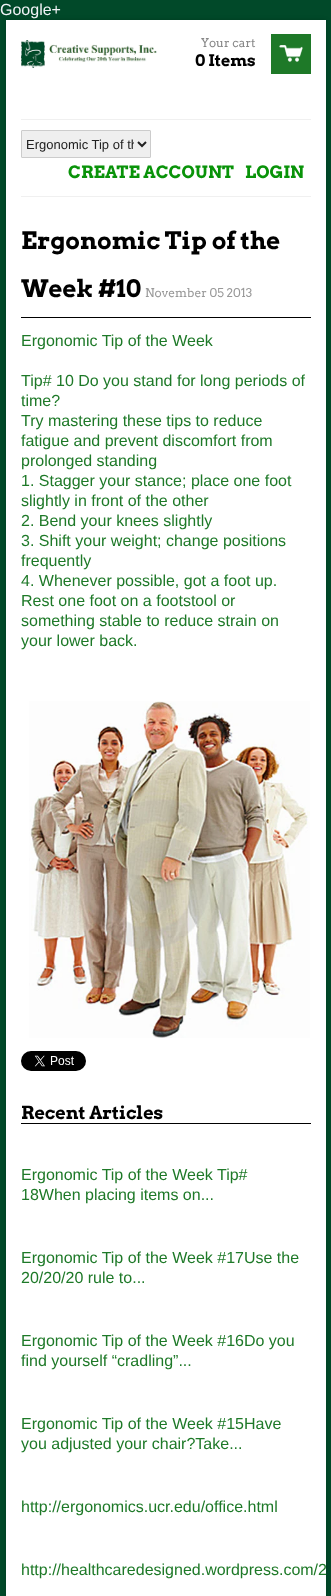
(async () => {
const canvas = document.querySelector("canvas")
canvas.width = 331
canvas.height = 1596
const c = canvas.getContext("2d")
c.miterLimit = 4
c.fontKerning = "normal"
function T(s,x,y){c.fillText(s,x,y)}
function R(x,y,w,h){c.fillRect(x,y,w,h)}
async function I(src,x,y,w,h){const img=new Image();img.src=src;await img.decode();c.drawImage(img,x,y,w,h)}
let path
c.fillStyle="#014929"
R(0,0,331,1596)
c.fillStyle="#00000033"
c.filter="blur(2px)"
c.beginPath()
c.rect(6,20,320,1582)
c.fill()
c.filter="none"
c.font="16px Liberation Sans"
c.fillStyle="#f1f3f7"
T("Google+",0,15)
c.fillStyle="#fff"
R(6,20,320,1576)
await I("1.png",21,40,136,28)
c.font="12px Arvo"
c.fillStyle="#888"
T("Your cart",201,47)
c.font="bold 16px Arvo"
c.fillStyle="#000"
T("0 Items",195,66)
c.fillStyle="#1e7928"
R(271,34,40,40)
await I("2.png",279,45,24,17)
c.fillStyle="#f0f0f0"
R(21,119,290,1)
R(21,196,290,1)
c.fillStyle="#efefef"
c.beginPath()
c.roundRect(21.5,130.5,129,27,.5)
c.fill()
c.strokeStyle="#ccc"
c.stroke()
path = new Path2D("M138 142l4 4l4-4")
c.strokeStyle="#222"
c.lineWidth=2
c.stroke(path)
c.save()
c.beginPath()
c.rect(26,136,108,17)
c.clip()
c.font="13px Liberation Sans"
c.fillStyle="#222"
T("Ergonomic Tip of th",26,149)
c.restore()
c.font="bold 17px Arvo"
c.fillStyle="#099309"
T("CREATE ACCOUNT",68,178)
T("LOGIN",245,178)
c.fillStyle="#000"
R(21,317,290,1)
c.font="bold 24px Arvo"
T("Ergonomic Tip of the",21,249)
T("Week #10",21,297)
c.font="12px Arvo"
c.fillStyle="#999"
T("November 05 2013",145,297)
c.font="16px Liberation Sans"
c.fillStyle="#1e7928"
T("Ergonomic Tip of the Week",21,346)
T("Tip# 10 Do you stand for long periods of",21,386)
T("time?",21,406)
T("Try mastering these tips to reduce",21,426)
T("fatigue and prevent discomfort from",21,446)
T("prolonged standing",21,466)
T("1. Stagger your stance; place one foot",21,486)
T("slightly in front of the other",21,506)
T("2. Bend your knees slightly",21,526)
T("3. Shift your weight; change positions",21,546)
T("frequently",21,566)
T("4. Whenever possible, got a foot up.",21,586)
T("Rest one foot on a footstool or",21,606)
T("something stable to reduce strain on",21,626)
T("your lower back.",21,646)
await I("3.png",29,701,281,337)
await I("4.png",21,1051,65,20)
c.fillStyle="#000"
R(21,1123,290,1)
c.font="bold 18px Arvo"
T("Recent Articles",21,1119)
c.font="16px Liberation Sans"
c.fillStyle="#1e7928"
T("Ergonomic Tip of the Week Tip#",21,1180)
T("18When placing items on...",21,1200)
T("Ergonomic Tip of the Week #17Use the",21,1263)
T("20/20/20 rule to...",21,1283)
T("Ergonomic Tip of the Week #16Do you",21,1346)
T("find yourself “cradling”...",21,1366)
T("Ergonomic Tip of the Week #15Have",21,1429)
T("you adjusted your chair?Take...",21,1449)
T("http://ergonomics.ucr.edu/office.html",21,1512)
T("http://healthcaredesigned.wordpress.com/2",21,1575)
})()
